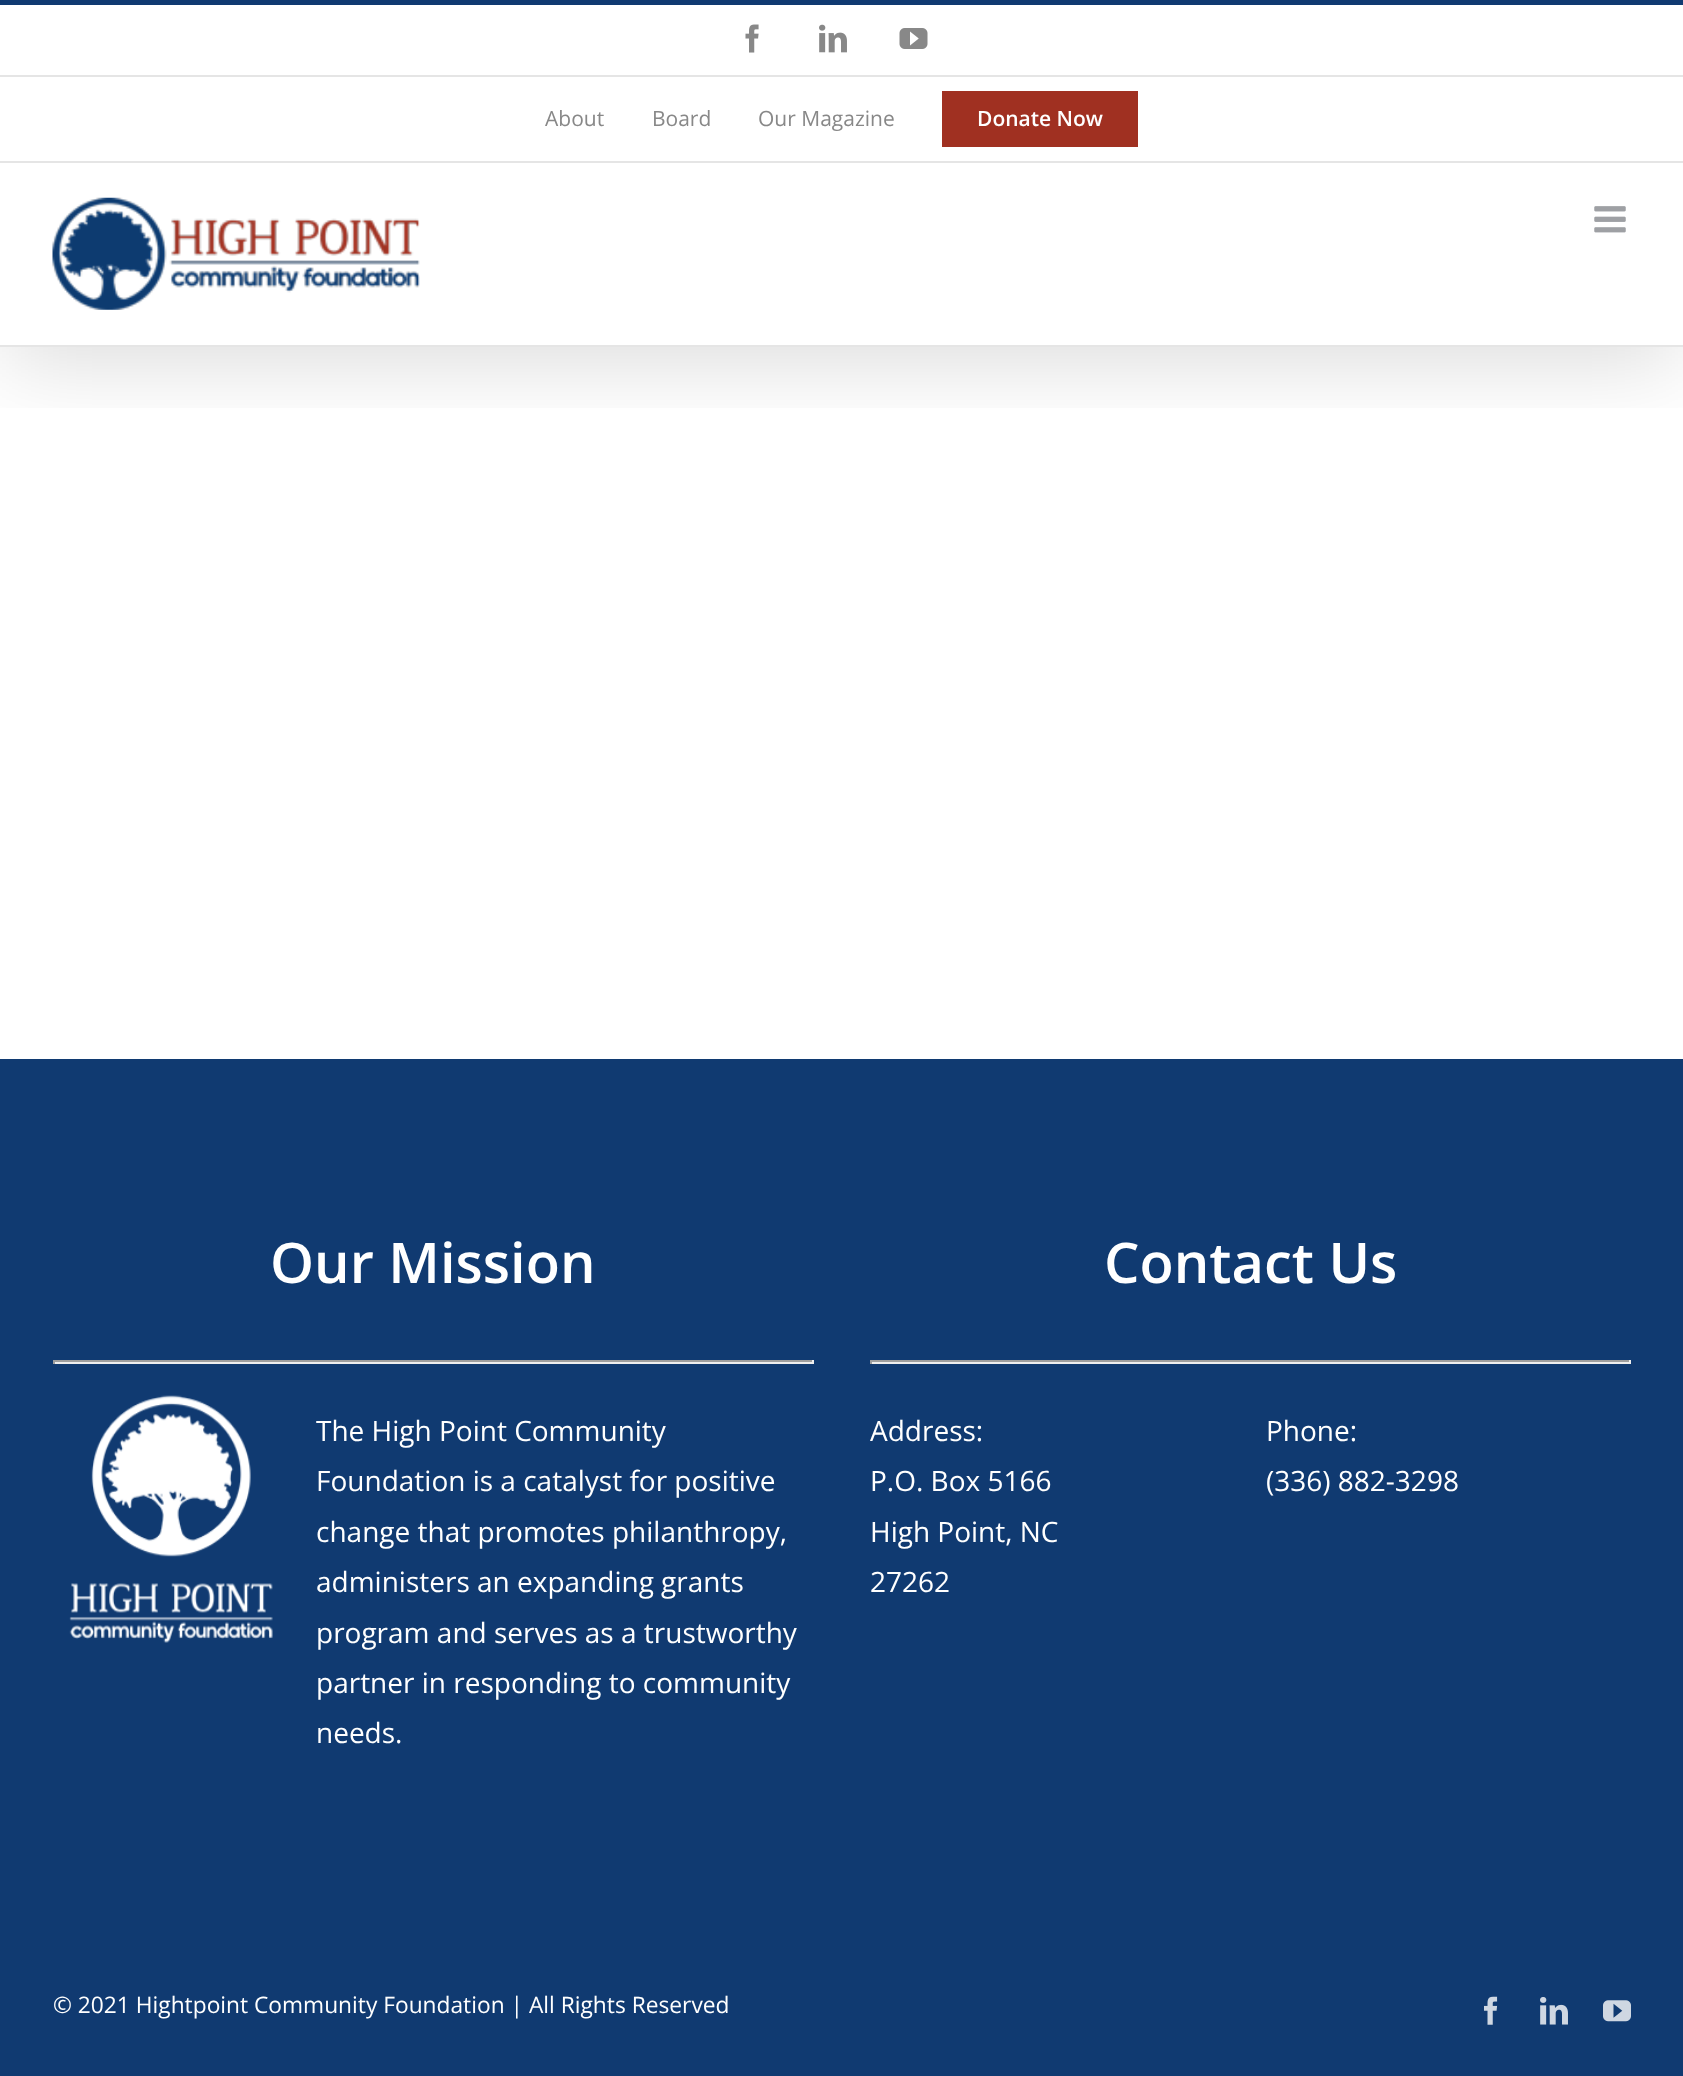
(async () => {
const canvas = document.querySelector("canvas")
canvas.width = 1683
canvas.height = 2076
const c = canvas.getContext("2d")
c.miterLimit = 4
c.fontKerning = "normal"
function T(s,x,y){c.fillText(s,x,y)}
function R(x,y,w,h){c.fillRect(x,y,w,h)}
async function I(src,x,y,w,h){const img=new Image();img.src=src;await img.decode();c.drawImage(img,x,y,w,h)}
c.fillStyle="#fff"
R(0,0,1683,2076)
c.save()
c.beginPath()
c.rect(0,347,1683,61)
c.clip()
c.fillStyle="#00000024"
c.filter="blur(44px)"
c.beginPath()
c.rect(4,21,1676,340)
c.fill()
c.filter="none"
c.restore()
c.fillStyle="#103a71"
R(0,0,1683,5)
c.fillStyle="#e5e5e5"
R(0,161,1683,2)
R(0,75,1683,2)
await I("1.png",745,24,14,29)
await I("2.png",819,24,28,29)
await I("3.png",899,28,29,21)
c.font="21px Open Sans"
c.fillStyle="#888"
T("About",545,126)
T("Board",652,126)
T("Our Magazine",758,126)
c.fillStyle="#a03021"
R(942,91,196,56)
c.font="600 21px Open Sans"
c.fillStyle="#fff"
T("Donate Now",977,126)
c.fillStyle="#e5e5e5"
R(0,345,1683,2)
await I("4.png",52,197,368,113)
await I("5.png",1594,206,32,27)
c.fillStyle="#103a71"
R(0,1059,1683,1017)
c.font="600 56px Open Sans"
c.fillStyle="#fff"
T("Our Mission",270,1283)
c.fillStyle="#9f9f9f"
R(53,1360,761,2)
c.fillStyle="#eee"
R(812,1360,2,4)
R(53,1362,761,2)
c.fillStyle="#9f9f9f"
R(53,1360,2,4)
await I("6.png",69,1395,204,248)
c.font="28px Open Sans"
c.fillStyle="#fff"
T("The High Point Community",316,1441)
T("Foundation is a catalyst for positive",316,1491)
T("change that promotes philanthropy,",316,1542)
T("administers an expanding grants",316,1592)
T("program and serves as a trustworthy",316,1643)
T("partner in responding to community",316,1693)
T("needs.",316,1743)
c.font="600 56px Open Sans"
T("Contact Us",1104,1283)
c.fillStyle="#9f9f9f"
R(870,1360,761,2)
c.fillStyle="#eee"
R(1629,1360,2,4)
R(870,1362,761,2)
c.fillStyle="#9f9f9f"
R(870,1360,2,4)
c.font="28px Open Sans"
c.fillStyle="#fff"
T("Address:",870,1441)
T("P.O. Box 5166",870,1491)
T("High Point, NC",870,1542)
T("27262",870,1592)
T("Phone:",1266,1441)
T("(336) 882-3298",1266,1491)
c.font="22.75px Open Sans"
T("© 2021 Hightpoint Community Foundation | All Rights Reserved",53,2013)
await I("7.png",1484,1996,14,29)
await I("8.png",1540,1997,28,28)
await I("9.png",1603,2000,28,22)
})()
